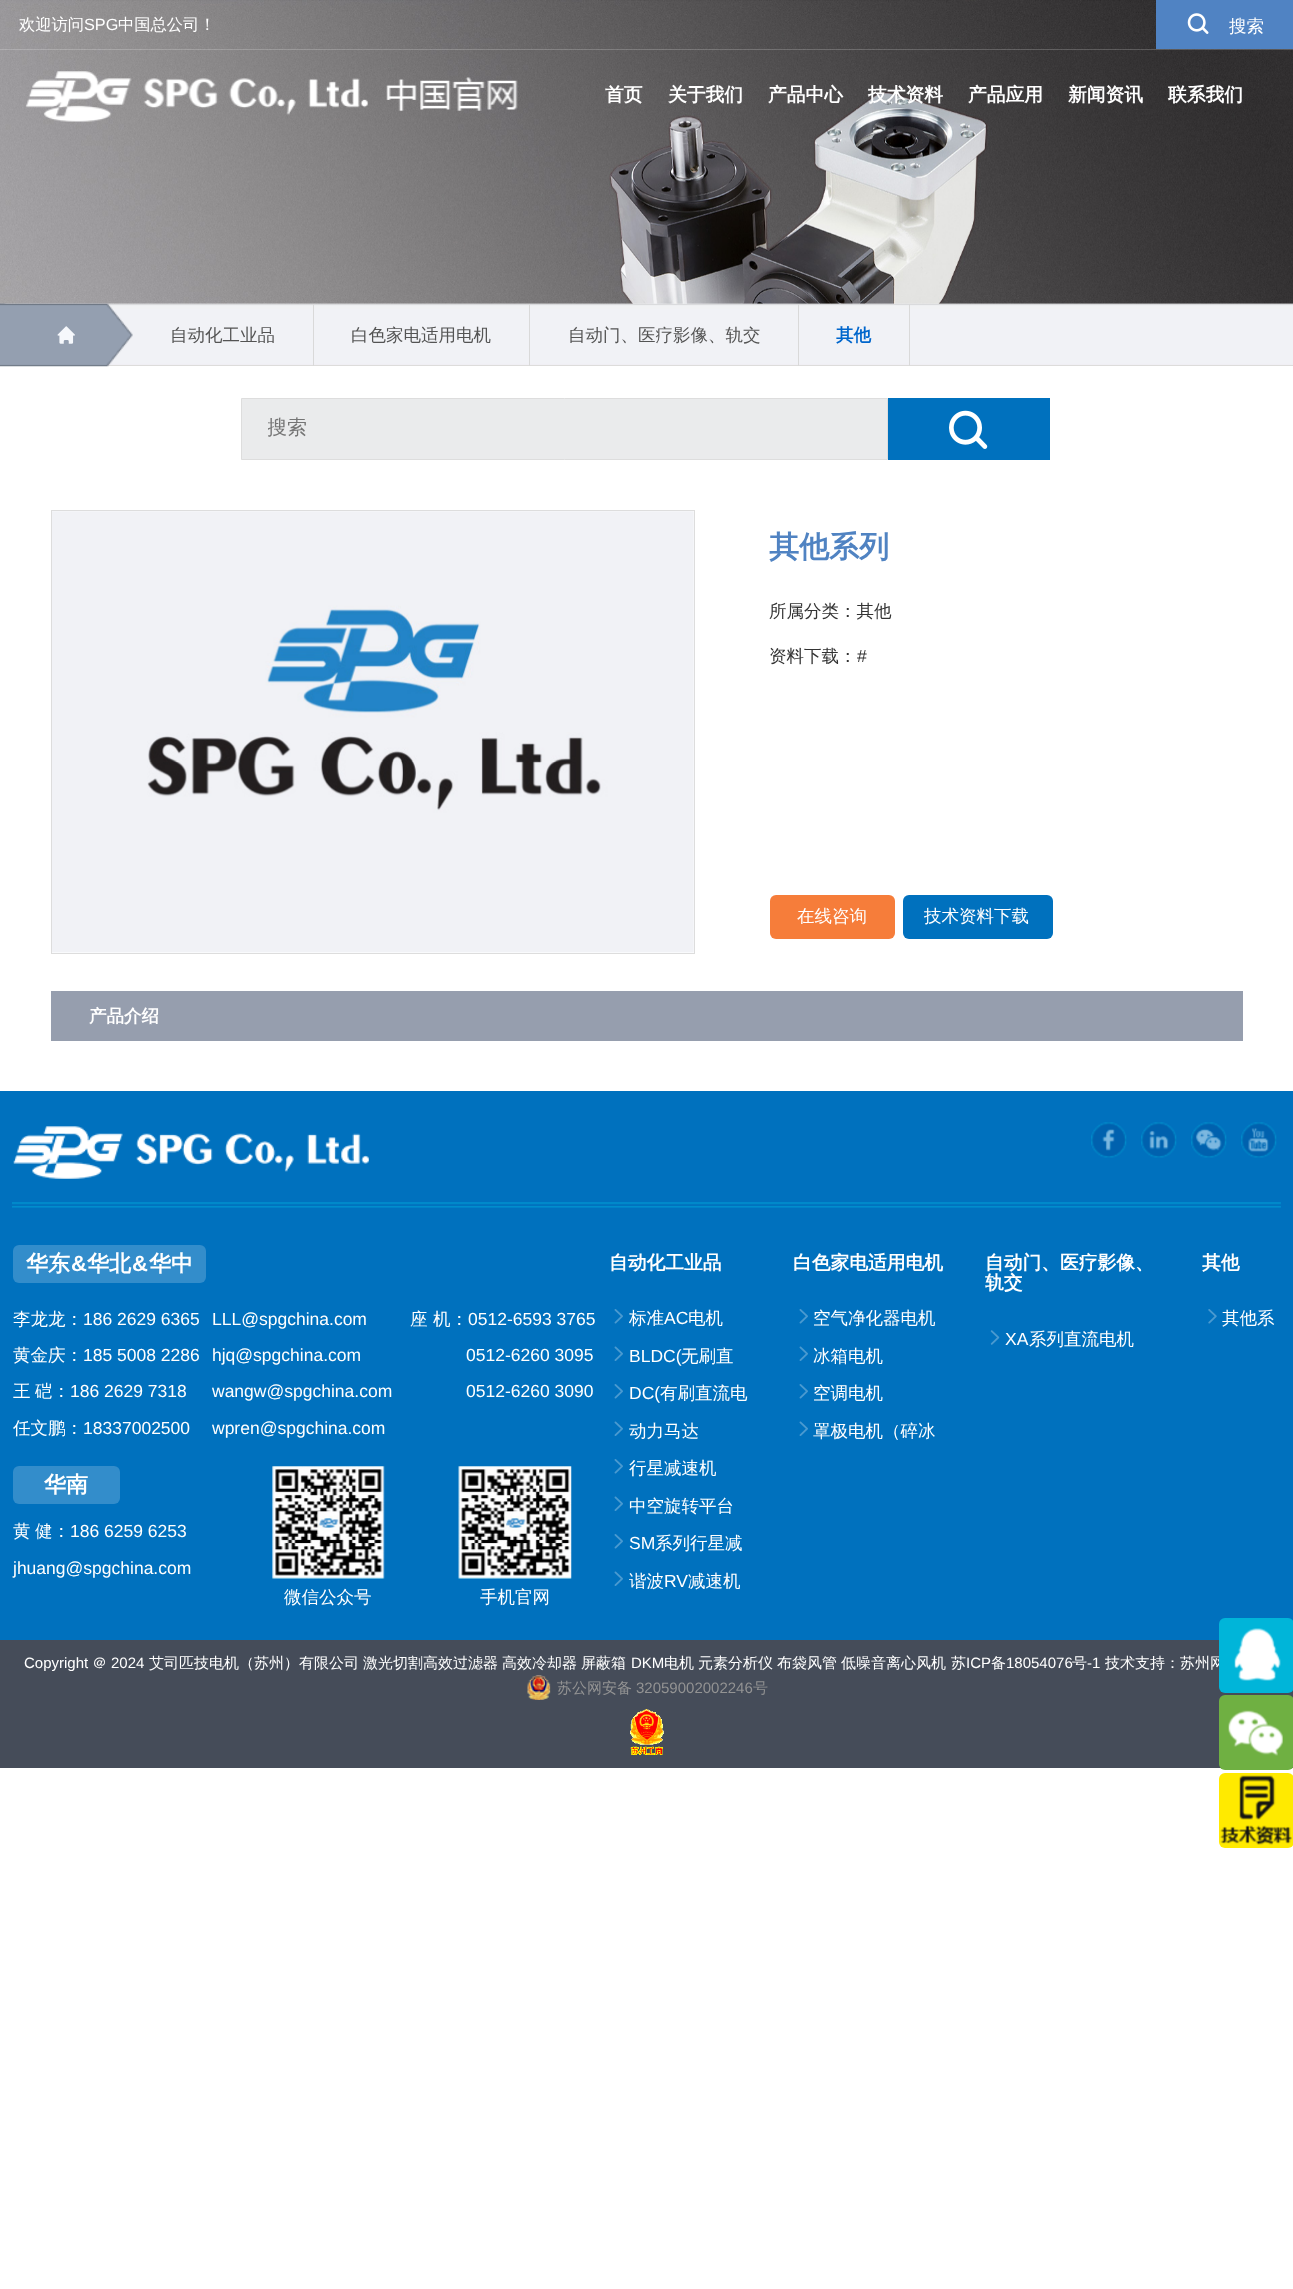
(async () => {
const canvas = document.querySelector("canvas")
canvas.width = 1293
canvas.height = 2289
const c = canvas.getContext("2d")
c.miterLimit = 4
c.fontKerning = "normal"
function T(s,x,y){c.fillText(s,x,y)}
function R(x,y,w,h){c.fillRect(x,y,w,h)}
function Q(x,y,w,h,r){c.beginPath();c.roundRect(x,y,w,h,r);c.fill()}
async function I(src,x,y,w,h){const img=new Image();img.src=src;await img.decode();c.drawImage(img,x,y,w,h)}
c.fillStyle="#fff"
R(0,0,1293,2289)
await I("3.png",0,0,1293,304)
c.fillStyle="#ffffff33"
R(0,49,1293,1)
c.font="500 16.25px WenQuanYi Zen Hei"
c.fillStyle="#fff"
T("欢迎访问",19,30)
c.font="16.25px Liberation Sans"
T("SPG",84,30)
c.font="500 16.25px WenQuanYi Zen Hei"
T("中国总公司！",118,30)
c.fillStyle="#5083c3"
R(1156,0,137,49)
await I("1.png",1187,13,22,21)
c.font="500 17.5px WenQuanYi Zen Hei"
c.fillStyle="#fff"
T("搜索",1229,32)
await I("2.png",26,71,492,51)
c.font="bold 18.75px WenQuanYi Zen Hei"
T("首页",605,101)
T("关于我们",668,101)
T("产品中心",768,101)
T("技术资料",868,101)
T("产品应用",968,101)
T("新闻资讯",1068,101)
T("联系我们",1168,101)
await I("4.png",0,303,1293,63)
await I("5.png",0,303,133,64)
await I("6.png",57,326,18,18)
c.fillStyle="#d9d9d9"
R(313,304,1,62)
c.font="500 17.5px WenQuanYi Zen Hei"
c.fillStyle="#545454"
T("自动化工业品",170,341)
c.fillStyle="#d9d9d9"
R(529,304,1,62)
c.fillStyle="#545454"
T("白色家电适用电机",351,341)
c.fillStyle="#d9d9d9"
R(798,304,1,62)
c.fillStyle="#545454"
T("自动门、医疗影像、轨交",568,341)
c.fillStyle="#d9d9d9"
R(909,304,1,62)
c.font="bold 17.5px WenQuanYi Zen Hei"
c.fillStyle="#06c"
T("其他",836,341)
c.fillStyle="#eaebec"
c.beginPath()
c.rect(241.5,398.5,646,61)
c.fill()
c.strokeStyle="#ddd"
c.stroke()
c.save()
c.beginPath()
c.rect(268,416,618,27)
c.clip()
c.font="500 20px WenQuanYi Zen Hei"
c.fillStyle="#757575"
T("搜索",267,434)
c.restore()
c.fillStyle="#0071be"
R(888,398,162,62)
await I("7.png",949,410,39,39)
c.strokeRect(51.5,510.5,643,443)
await I("8.png",52,511,642,442)
c.font="bold 30px WenQuanYi Zen Hei"
c.fillStyle="#5083c2"
T("其他系列",769,557)
c.font="500 17.5px WenQuanYi Zen Hei"
c.fillStyle="#333"
T("所属分类：其他",769,617)
T("资料下载：",769,662)
c.font="17.5px Liberation Sans"
T("#",857,662)
c.fillStyle="#f67d3a"
Q(770,895,125,44,6)
c.font="500 17.5px WenQuanYi Zen Hei"
c.fillStyle="#fff"
T("在线咨询",797,922)
c.fillStyle="#0071be"
Q(903,895,150,44,6)
c.fillStyle="#fff"
T("技术资料下载",924,922)
c.fillStyle="#969eae"
R(51,991,1192,50)
c.font="bold 17.5px WenQuanYi Zen Hei"
c.fillStyle="#fff"
T("产品介绍",89,1022)
c.fillStyle="#0071be"
R(0,1091,1293,549)
await I("9.png",12,1202,1269,6)
await I("10.png",13,1126,356,53)
await I("11.png",1091,1122,36,36)
await I("12.png",1141,1122,36,36)
await I("13.png",1191,1122,36,36)
await I("14.png",1241,1122,36,36)
c.fillStyle="#338dcb"
Q(13,1245,193,38,6)
c.font="bold 22px WenQuanYi Zen Hei"
c.fillStyle="#fff"
T("华东",26,1271)
c.font="bold 22px Liberation Sans"
T("&",71,1271)
c.font="bold 22px WenQuanYi Zen Hei"
T("华北",87,1271)
c.font="bold 22px Liberation Sans"
T("&",132,1271)
c.font="bold 22px WenQuanYi Zen Hei"
T("华中",149,1271)
c.font="500 17.5px WenQuanYi Zen Hei"
T("李龙龙：",13,1325)
c.font="17.5px Liberation Sans"
T("186 2629 6365",83,1325)
c.font="500 17.5px WenQuanYi Zen Hei"
T("黄金庆：",13,1361)
c.font="17.5px Liberation Sans"
T("185 5008 2286",83,1361)
c.font="500 17.5px WenQuanYi Zen Hei"
T("王",13,1397)
T("硙：",35,1397)
c.font="17.5px Liberation Sans"
T("186 2629 7318",70,1397)
c.font="500 17.5px WenQuanYi Zen Hei"
T("任文鹏：",13,1434)
c.font="17.5px Liberation Sans"
T("18337002500",83,1434)
T("LLL@spgchina.com",212,1325)
T("hjq@spgchina.com",212,1361)
T("wangw@spgchina.com",212,1397)
T("wpren@spgchina.com",212,1434)
c.font="500 17.5px WenQuanYi Zen Hei"
T("座",410,1325)
T("机：",433,1325)
c.font="17.5px Liberation Sans"
T("0512-6593 3765",468,1325)
T("0512-6260 3095",466,1361)
T("0512-6260 3090",466,1397)
c.fillStyle="#338dcb"
Q(13,1466,107,38,6)
c.font="bold 22px WenQuanYi Zen Hei"
c.fillStyle="#fff"
T("华南",44,1492)
c.font="500 17.5px WenQuanYi Zen Hei"
T("黄",13,1537)
T("健：",35,1537)
c.font="17.5px Liberation Sans"
T("186 6259 6253",70,1537)
T("jhuang@spgchina.com",13,1574)
await I("15.png",272,1466,113,113)
c.font="500 17.5px WenQuanYi Zen Hei"
T("微信公众号",284,1603)
await I("16.png",458,1466,114,113)
T("手机官网",480,1603)
c.font="bold 18.75px WenQuanYi Zen Hei"
T("自动化工业品",609,1269)
await I("17.png",614,1309,9,15)
c.font="500 17.5px WenQuanYi Zen Hei"
T("标准",629,1324)
c.font="17.5px Liberation Sans"
T("AC",664,1324)
c.font="500 17.5px WenQuanYi Zen Hei"
T("电机",688,1324)
await I("18.png",614,1346,9,15)
c.font="17.5px Liberation Sans"
T("BLDC(",629,1362)
c.font="500 17.5px WenQuanYi Zen Hei"
T("无刷直",681,1362)
await I("17.png",614,1384,9,15)
c.font="17.5px Liberation Sans"
T("DC(",629,1399)
c.font="500 17.5px WenQuanYi Zen Hei"
T("有刷直流电",660,1399)
await I("18.png",614,1421,9,15)
T("动力马达",629,1437)
await I("17.png",614,1459,9,15)
T("行星减速机",629,1474)
await I("18.png",614,1496,9,15)
T("中空旋转平台",629,1512)
await I("17.png",614,1534,9,15)
c.font="17.5px Liberation Sans"
T("SM",629,1549)
c.font="500 17.5px WenQuanYi Zen Hei"
T("系列行星减",655,1549)
await I("18.png",614,1571,9,15)
T("谐波",629,1587)
c.font="17.5px Liberation Sans"
T("RV",664,1587)
c.font="500 17.5px WenQuanYi Zen Hei"
T("减速机",688,1587)
c.font="bold 18.75px WenQuanYi Zen Hei"
T("白色家电适用电机",793,1269)
await I("17.png",799,1309,9,15)
c.font="500 17.5px WenQuanYi Zen Hei"
T("空气净化器电机",813,1324)
await I("18.png",799,1346,9,15)
T("冰箱电机",813,1362)
await I("17.png",799,1384,9,15)
T("空调电机",813,1399)
await I("18.png",799,1421,9,15)
T("罩极电机（碎冰",813,1437)
c.font="bold 18.75px WenQuanYi Zen Hei"
T("自动门、医疗影像、",985,1269)
T("轨交",985,1289)
await I("19.png",990,1330,10,15)
c.font="17.5px Liberation Sans"
T("XA",1005,1345)
c.font="500 17.5px WenQuanYi Zen Hei"
T("系列直流电机",1029,1345)
c.font="bold 18.75px WenQuanYi Zen Hei"
T("其他",1202,1269)
await I("20.png",1208,1309,9,15)
c.font="500 17.5px WenQuanYi Zen Hei"
T("其他系",1222,1324)
c.fillStyle="#454c59"
R(0,1640,1293,128)
c.font="15px Liberation Sans"
c.fillStyle="#fff"
T("Copyright",24,1668)
c.font="500 15px WenQuanYi Zen Hei"
T("＠",92,1668)
c.font="15px Liberation Sans"
T("2024",111,1668)
c.font="500 15px WenQuanYi Zen Hei"
T("艾司匹技电机（苏州）有限公司",149,1668)
T("激光切割高效过滤器",363,1668)
T("高效冷却器",502,1668)
T("屏蔽箱",581,1668)
c.font="15px Liberation Sans"
T("DKM",631,1668)
c.font="500 15px WenQuanYi Zen Hei"
T("电机",664,1668)
T("元素分析仪",698,1668)
T("布袋风管",777,1668)
T("低噪音离心风机",841,1668)
T("苏",951,1668)
c.font="15px Liberation Sans"
T("ICP",966,1668)
c.font="500 15px WenQuanYi Zen Hei"
T("备",991,1668)
c.font="15px Liberation Sans"
T("18054076",1006,1668)
c.font="500 15px WenQuanYi Zen Hei"
T("号",1072,1668)
c.font="15px Liberation Sans"
T("-1",1087,1668)
c.font="500 15px WenQuanYi Zen Hei"
T("技术支持：苏州网",1105,1668)
await I("21.png",527,1675,24,25)
c.fillStyle="#939393"
T("苏公网安备",557,1693)
c.font="15px Liberation Sans"
T("32059002002246",636,1693)
c.font="500 15px WenQuanYi Zen Hei"
T("号",753,1693)
await I("22.png",630,1709,34,46)
c.fillStyle="#00b5d9"
Q(1219,1618,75,75,6)
await I("23.png",1234,1628,47,53)
c.fillStyle="#6fb042"
Q(1219,1695,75,75,6)
await I("24.png",1228,1710,55,46)
c.fillStyle="#ffea00"
Q(1219,1773,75,75,6)
await I("25.png",1220,1775,72,70)
})()
